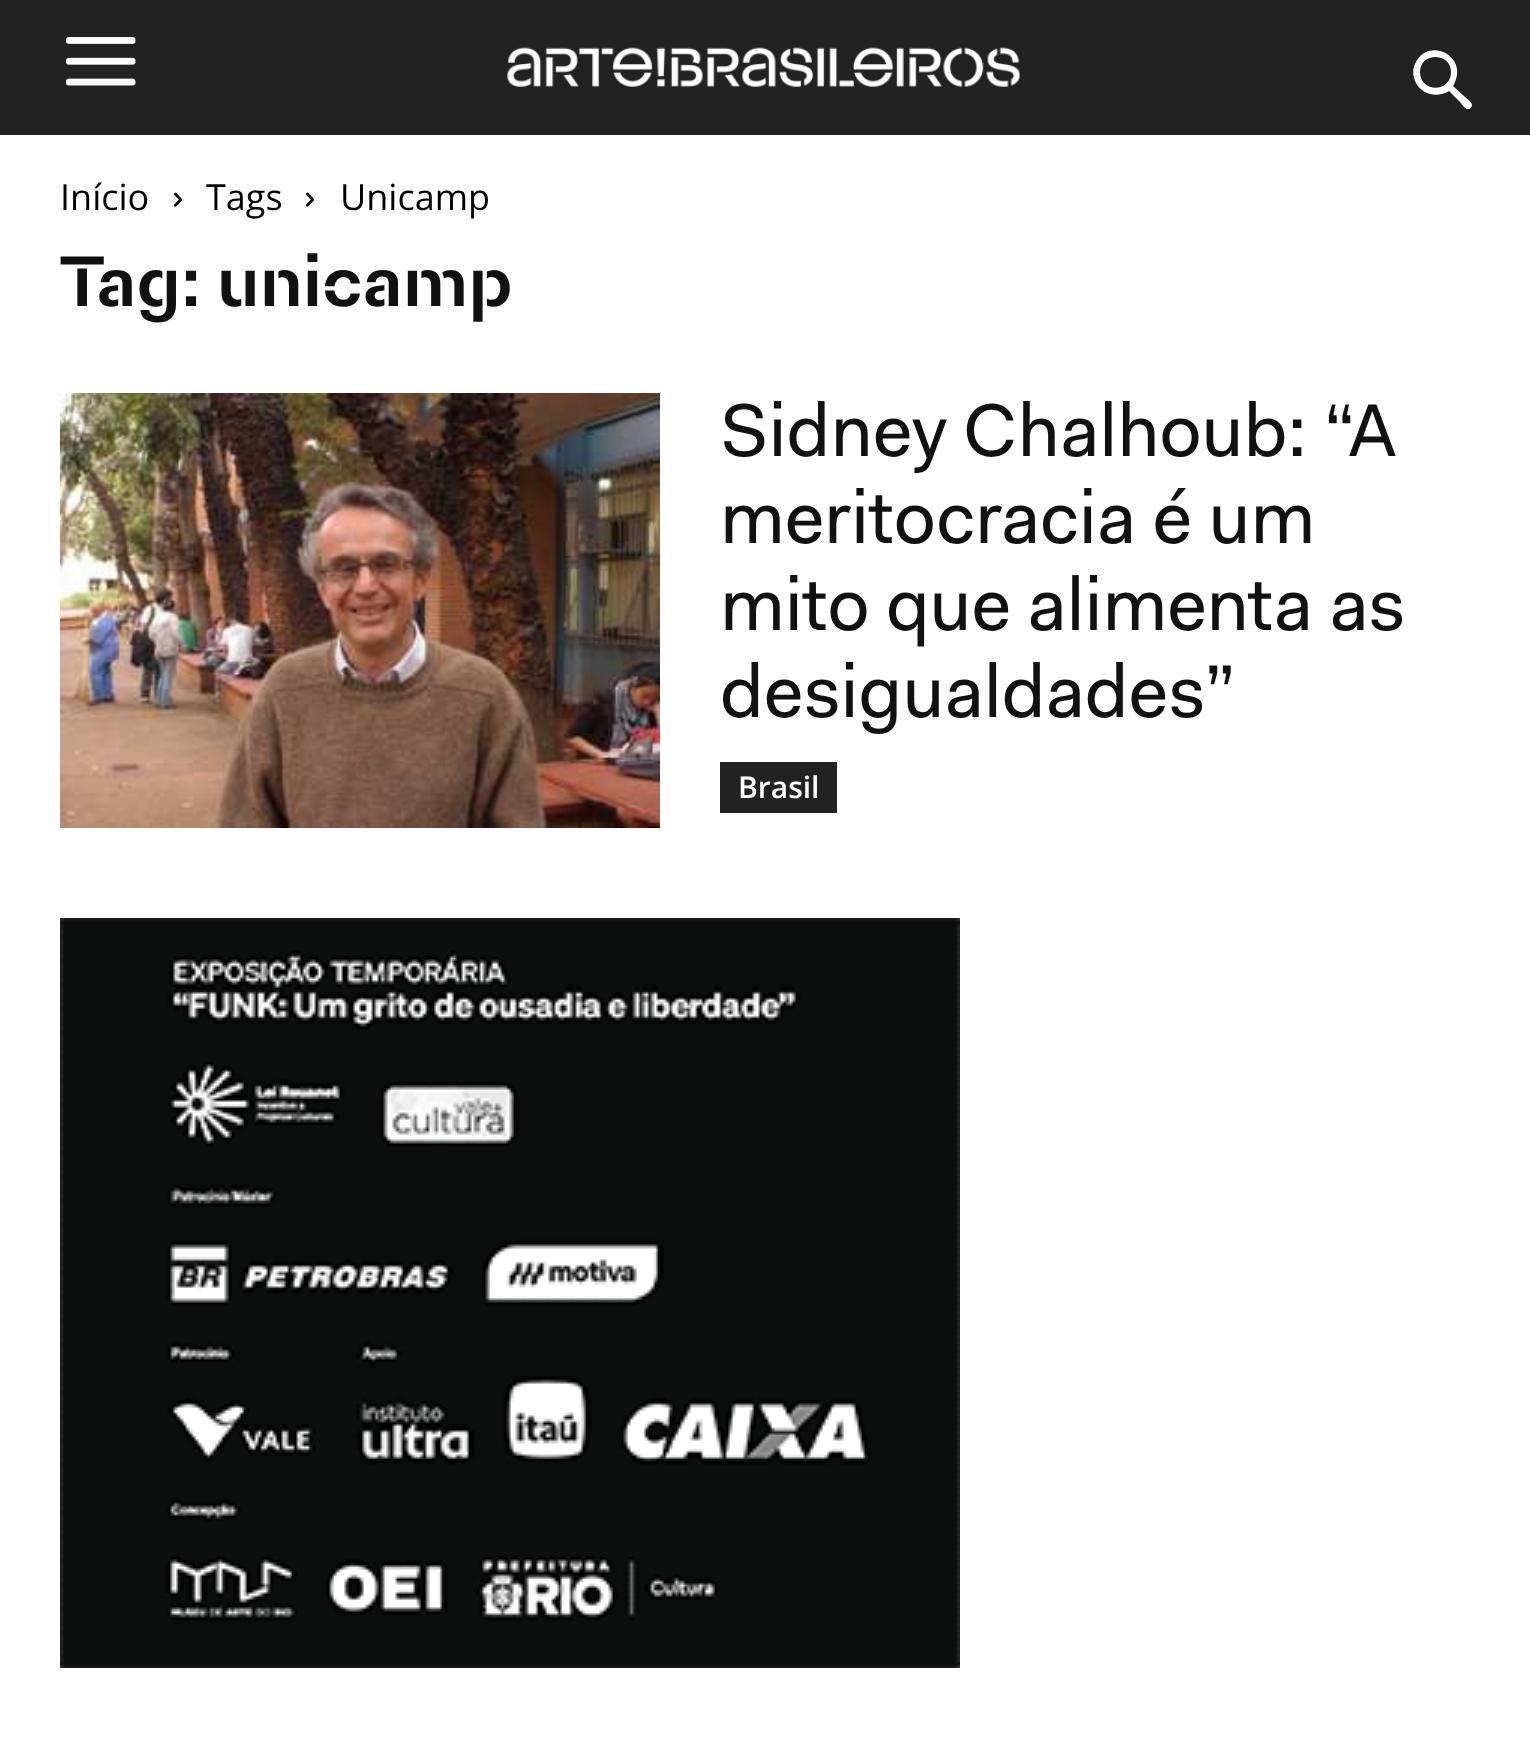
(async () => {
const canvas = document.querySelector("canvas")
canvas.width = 1530
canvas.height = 1745
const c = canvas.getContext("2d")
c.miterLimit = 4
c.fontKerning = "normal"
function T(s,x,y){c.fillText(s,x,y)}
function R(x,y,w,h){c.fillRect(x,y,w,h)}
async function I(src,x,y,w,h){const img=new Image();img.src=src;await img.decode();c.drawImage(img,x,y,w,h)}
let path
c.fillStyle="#fff"
R(0,0,1530,1745)
c.fillStyle="#222"
R(0,0,1530,135)
await I("1.png",66,37,70,49)
await I("2.png",507,47,513,40)
c.fillStyle="#fff"
path = new Path2D("M1451 72c0 21-31 21-31 0c0-20 31-20 31 0zm21 33c0-3-5-6-7-8l-12-11c18-30-26-51-38-22c-3 6-2 13 1 19c6 12 22 15 33 8l11 11c2 2 5 8 9 7c1 0 3-2 3-4z")
c.fill(path)
c.font="36px Open Sans"
c.fillStyle="#000"
T("Início",60,210)
await I("3.png",174,192,9,15)
T("Tags",206,210)
await I("3.png",306,192,9,15)
T("Unicamp",340,210)
c.font="600 72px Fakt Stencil"
c.fillStyle="#111"
T("Tag: unicamp",60,306)
await I("4.png",60,393,600,435)
c.font="75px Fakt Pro"
T("Sidney Chalhoub: “A",720,456)
T("meritocracia é um",720,543)
T("mito que alimenta as",720,630)
T("desigualdades”",720,717)
c.fillStyle="#222"
R(720,762,117,51)
c.font="600 30px Open Sans"
c.fillStyle="#fff"
T("Brasil",738,798)
await I("5.png",60,918,900,750)
})()
